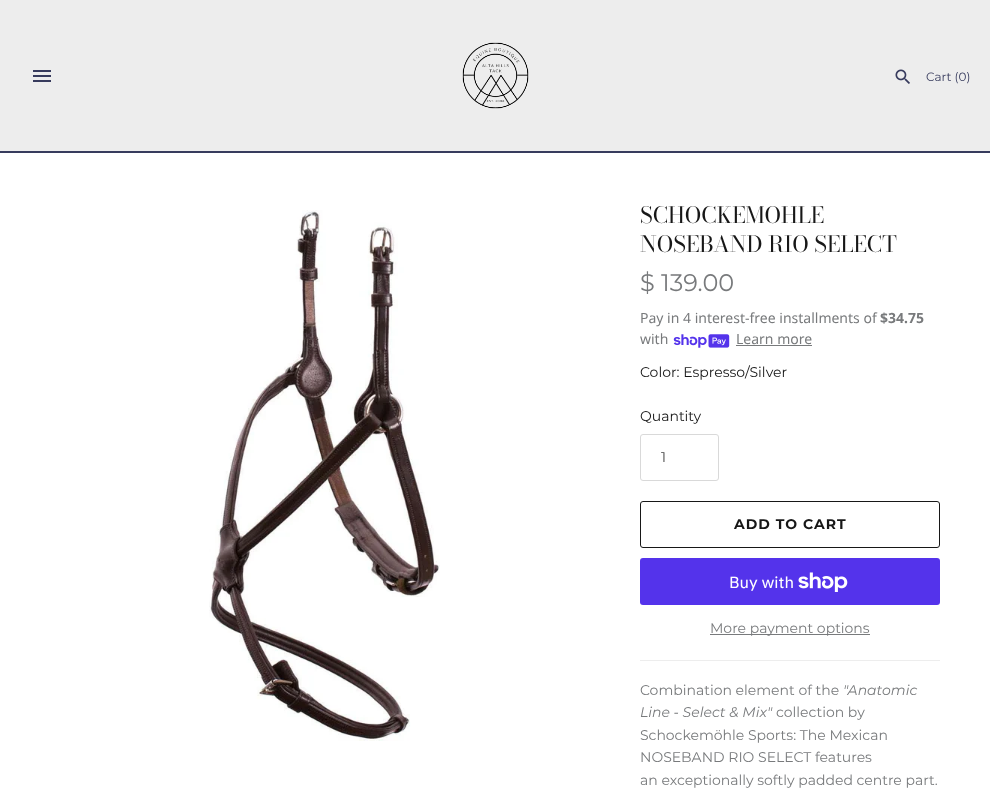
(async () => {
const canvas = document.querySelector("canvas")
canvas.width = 990
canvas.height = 792
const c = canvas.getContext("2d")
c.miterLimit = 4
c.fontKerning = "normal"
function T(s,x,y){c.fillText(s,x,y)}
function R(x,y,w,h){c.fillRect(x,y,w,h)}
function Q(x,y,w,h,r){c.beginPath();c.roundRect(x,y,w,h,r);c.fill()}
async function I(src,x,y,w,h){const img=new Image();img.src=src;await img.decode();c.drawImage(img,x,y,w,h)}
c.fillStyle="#fff"
R(0,0,990,792)
c.fillStyle="#ededed"
R(0,0,990,151)
await I("1.png",33,70,18,12)
await I("2.png",462,42,67,67)
await I("3.png",895,69,15,15)
c.font="12px Montserrat"
c.fillStyle="#373b5d"
T("Cart (0)",926,81)
R(0,151,990,2)
await I("4.png",209,210,231,531)
c.font="22.4px Bodoni Moda"
c.fillStyle="#171717"
T("SCHOCKEMOHLE",640,223)
T("NOSEBAND RIO SELECT",640,252)
c.font="24px Montserrat"
c.fillStyle="#787a7c"
T("$ 139.00",640,291)
c.font="14px Noto Sans"
T("Pay in 4 interest-free installments of",640,323)
c.font="bold 14px Noto Sans"
T("$34.75",880,323)
c.font="14px Noto Sans"
T("with",640,344)
await I("5.png",673,334,57,14)
T("Learn more",736,344)
R(736,345,76,1)
c.font="14px Montserrat"
c.fillStyle="#171717"
T("Color: Espresso/Silver",640,377)
T("Quantity",640,421)
c.beginPath()
c.roundRect(640.5,434.5,78,46,2.5)
c.strokeStyle="#d9d9d9"
c.stroke()
c.fillStyle="#444"
T("1",661,462)
c.beginPath()
c.roundRect(640.5,501.5,299,46,2.5)
c.strokeStyle="#171717"
c.stroke()
c.letterSpacing="1px"
c.font="bold 14px Montserrat"
c.fillStyle="#171717"
T("ADD TO CART",734,529)
c.fillStyle="#5433eb"
Q(640,558,300,47,3)
c.letterSpacing="0px"
c.font="16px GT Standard"
c.fillStyle="#fff"
T("Buy with",729,588)
await I("6.png",798,572,50,20)
c.fillStyle="#787a7c"
R(710,634,160,1)
c.font="14px Montserrat"
T("More payment options",710,633)
c.fillStyle="#ededed"
R(640,660,300,1)
c.fillStyle="#787a7c"
T("Combination element of the",640,695)
c.font="italic 14px Montserrat"
T("\"Anatomic",843,695)
T("Line - Select & Mix\"",640,717)
c.font="14px Montserrat"
T("collection by",776,717)
T("Schockemöhle Sports: The Mexican",640,740)
T("NOSEBAND RIO SELECT features",640,762)
T("an exceptionally softly padded centre part.",640,785)
})()
